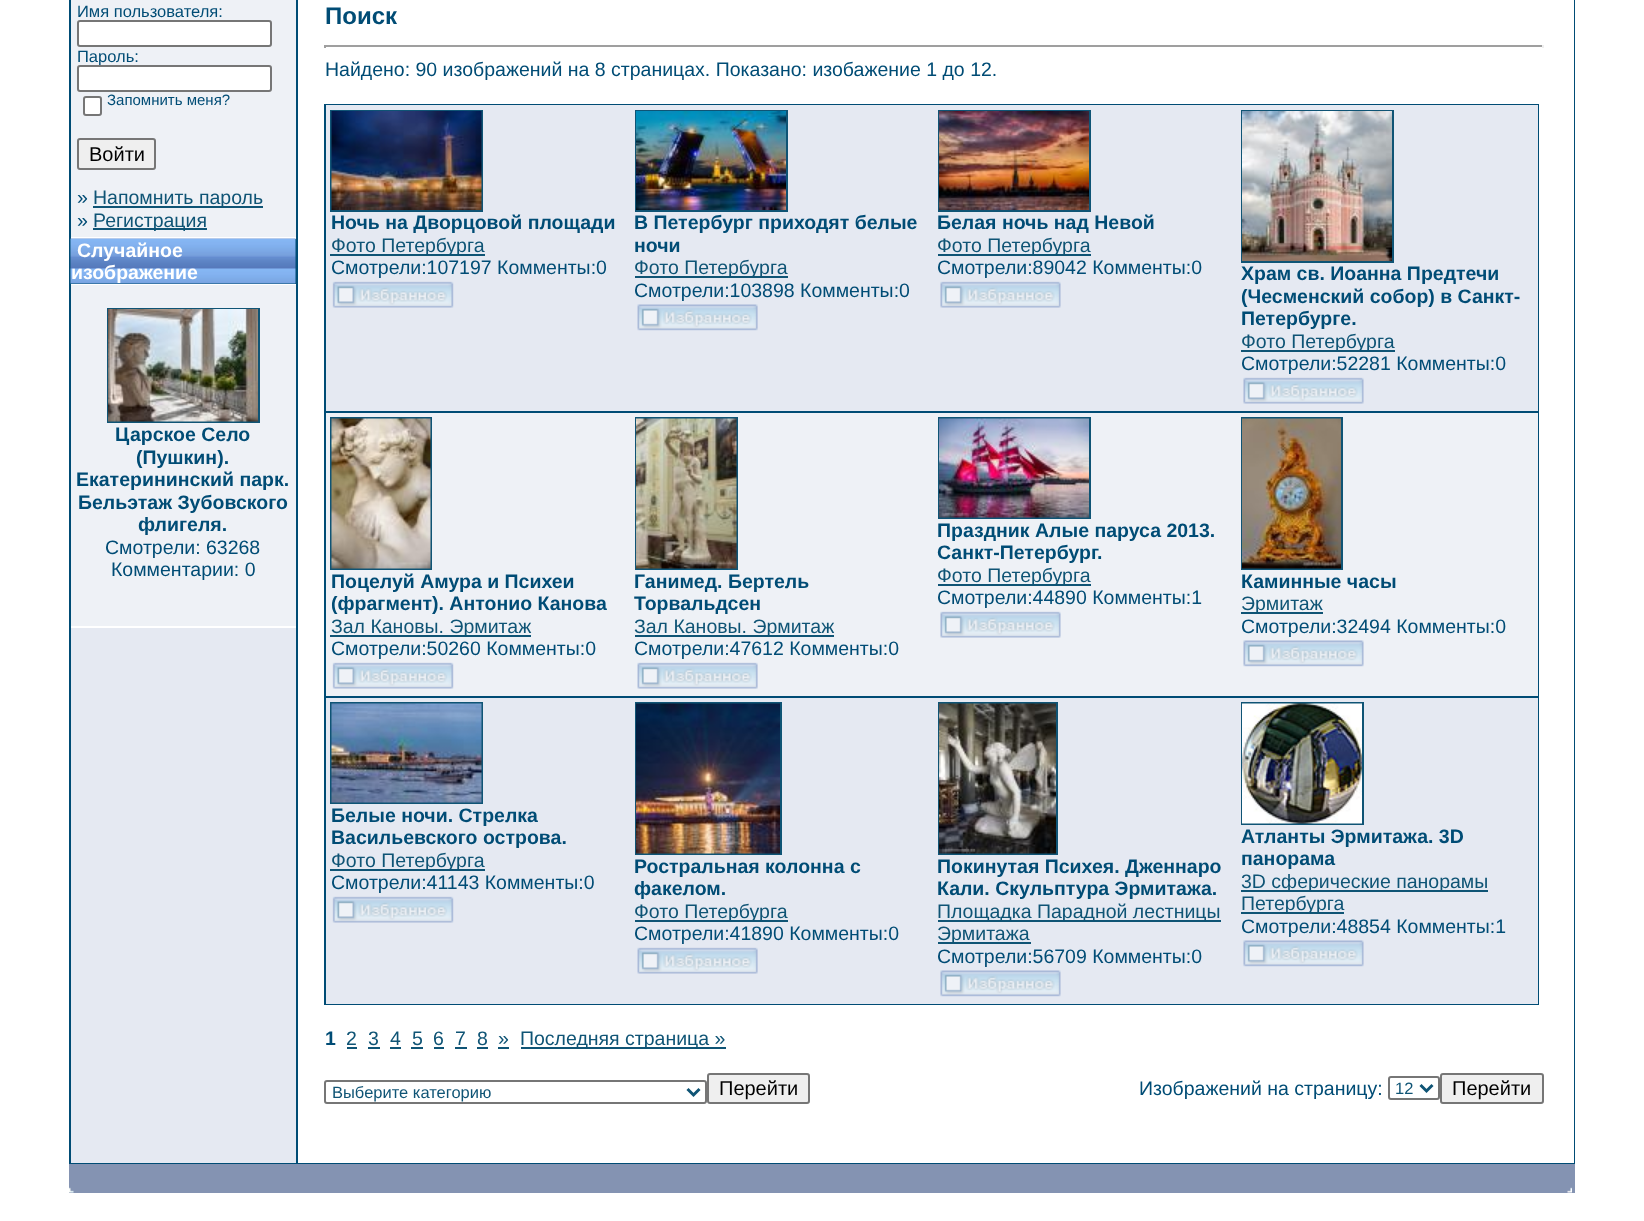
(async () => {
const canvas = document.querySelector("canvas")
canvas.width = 1644
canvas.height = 1221
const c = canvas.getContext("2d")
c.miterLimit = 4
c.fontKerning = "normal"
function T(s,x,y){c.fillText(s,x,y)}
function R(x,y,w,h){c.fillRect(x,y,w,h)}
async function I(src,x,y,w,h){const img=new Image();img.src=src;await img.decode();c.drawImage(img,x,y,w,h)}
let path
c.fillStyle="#fff"
R(0,0,1644,1221)
c.fillStyle="#004c75"
R(69,0,1506,1164)
c.fillStyle="#fff"
R(298,0,1276,1163)
c.fillStyle="#e5e9f2"
R(71,628,225,535)
c.fillStyle="#eef1f6"
R(71,0,225,237)
c.font="16.5px Liberation Sans"
c.fillStyle="#004c75"
T("Имя пользователя:",77,17)
c.fillStyle="#fff"
c.beginPath()
c.roundRect(78,21,193,25,2)
c.fill()
c.strokeStyle="#767676"
c.lineWidth=2
c.stroke()
c.fillStyle="#004c75"
T("Пароль:",77,62)
c.fillStyle="#fff"
c.beginPath()
c.roundRect(78,66,193,25,2)
c.fill()
c.stroke()
c.beginPath()
c.roundRect(84,97,17,18,2)
c.fill()
c.stroke()
c.font="15px Liberation Sans"
c.fillStyle="#004c75"
T("Запомнить меня?",107,105)
c.fillStyle="#efefef"
c.beginPath()
c.roundRect(78,139,77,30,2)
c.fill()
c.stroke()
c.font="20px Liberation Sans"
c.fillStyle="#000"
T("Войти",89,161)
c.font="19.5px Liberation Sans"
c.fillStyle="#004c75"
T("»",77,204)
c.fillStyle="#0f5475"
R(93,206,170,2)
T("Напомнить пароль",93,204)
c.fillStyle="#004c75"
T("»",77,227)
c.fillStyle="#0f5475"
R(93,228,114,2)
T("Регистрация",93,227)
c.fillStyle="#fff"
R(71,237,225,2)
await I("1.png",70,238,226,46)
c.font="bold 19.5px Liberation Sans"
T("Случайное",77,257)
T("изображение",71,279)
R(71,284,225,1)
c.fillStyle="#eef1f6"
R(71,285,225,341)
c.strokeStyle="#0f5475"
c.strokeRect(108,309,151,113)
await I("2.png",108,309,150,113)
c.fillStyle="#004c75"
T("Царское Село",115,441)
T("(Пушкин).",136,464)
T("Екатерининский парк.",76,486)
T("Бельэтаж Зубовского",78,509)
T("флигеля.",138,531)
c.font="19.5px Liberation Sans"
T("Смотрели: 63268",105,554)
T("Комментарии: 0",111,576)
c.fillStyle="#fff"
R(71,626,225,2)
c.font="bold 24px Liberation Sans"
c.fillStyle="#004c75"
T("Поиск",325,24)
c.fillStyle="#9f9f9f"
R(324,45,1220,2)
c.fillStyle="#eee"
R(1542,45,2,3)
c.fillStyle="#9f9f9f"
R(324,45,2,3)
c.font="19.5px Liberation Sans"
c.fillStyle="#004c75"
T("Найдено: 90 изображений на 8 страницах. Показано: изобажение 1 до 12.",325,76)
R(324,104,1215,901)
c.fillStyle="#e5e9f2"
R(326,105,1212,306)
c.strokeRect(331,111,151,100)
await I("3.png",331,111,151,99)
c.font="bold 19.5px Liberation Sans"
c.fillStyle="#004c75"
T("Ночь на Дворцовой площади",331,229)
c.fillStyle="#0f5475"
R(330,254,155,2)
c.font="19.5px Liberation Sans"
T("Фото Петербурга",331,252)
c.fillStyle="#004c75"
T("Смотрели:107197 Комменты:0",331,274)
await I("4.png",332,281,122,27)
c.strokeRect(636,111,151,100)
await I("5.png",636,111,150,99)
c.font="bold 19.5px Liberation Sans"
T("В Петербург приходят белые",634,229)
T("ночи",634,252)
c.fillStyle="#0f5475"
R(635,276,153,2)
c.font="19.5px Liberation Sans"
T("Фото Петербурга",634,274)
c.fillStyle="#004c75"
T("Смотрели:103898 Комменты:0",634,297)
await I("6.png",637,304,121,27)
c.strokeRect(939,111,151,100)
await I("7.png",939,111,150,99)
c.font="bold 19.5px Liberation Sans"
T("Белая ночь над Невой",937,229)
c.fillStyle="#0f5475"
R(938,254,153,2)
c.font="19.5px Liberation Sans"
T("Фото Петербурга",937,252)
c.fillStyle="#004c75"
T("Смотрели:89042 Комменты:0",937,274)
await I("8.png",940,281,121,27)
c.strokeRect(1242,111,151,151)
await I("9.png",1242,111,150,150)
c.font="bold 19.5px Liberation Sans"
T("Храм св. Иоанна Предтечи",1241,280)
T("(Чесменский собор) в Санкт-",1241,303)
T("Петербурге.",1241,325)
c.fillStyle="#0f5475"
R(1241,350,154,2)
c.font="19.5px Liberation Sans"
T("Фото Петербурга",1241,348)
c.fillStyle="#004c75"
T("Смотрели:52281 Комменты:0",1241,370)
await I("8.png",1243,377,121,27)
c.fillStyle="#eef1f6"
R(326,413,1212,283)
c.strokeRect(331,418,100,151)
await I("10.png",331,418,100,151)
c.font="bold 19.5px Liberation Sans"
c.fillStyle="#004c75"
T("Поцелуй Амура и Психеи",331,588)
T("(фрагмент). Антонио Канова",331,610)
c.fillStyle="#0f5475"
R(330,635,201,2)
c.font="19.5px Liberation Sans"
T("Зал Кановы. Эрмитаж",331,633)
c.fillStyle="#004c75"
T("Смотрели:50260 Комменты:0",331,655)
await I("11.png",332,662,122,27)
c.strokeRect(636,418,101,151)
await I("12.png",636,418,101,151)
c.font="bold 19.5px Liberation Sans"
T("Ганимед. Бертель",634,588)
T("Торвальдсен",634,610)
c.fillStyle="#0f5475"
R(635,635,199,2)
c.font="19.5px Liberation Sans"
T("Зал Кановы. Эрмитаж",634,633)
c.fillStyle="#004c75"
T("Смотрели:47612 Комменты:0",634,655)
await I("13.png",637,662,121,27)
c.strokeRect(939,418,151,100)
await I("14.png",939,418,150,100)
c.font="bold 19.5px Liberation Sans"
T("Праздник Алые паруса 2013.",937,537)
T("Санкт-Петербург.",937,559)
c.fillStyle="#0f5475"
R(938,584,153,2)
c.font="19.5px Liberation Sans"
T("Фото Петербурга",937,582)
c.fillStyle="#004c75"
T("Смотрели:44890 Комменты:1",937,604)
await I("15.png",940,611,121,27)
c.strokeRect(1242,418,100,151)
await I("16.png",1242,418,99,151)
c.font="bold 19.5px Liberation Sans"
T("Каминные часы",1241,588)
c.fillStyle="#0f5475"
R(1241,612,82,2)
c.font="19.5px Liberation Sans"
T("Эрмитаж",1241,610)
c.fillStyle="#004c75"
T("Смотрели:32494 Комменты:0",1241,633)
await I("17.png",1243,640,121,27)
c.fillStyle="#e5e9f2"
R(326,698,1212,306)
c.strokeRect(331,703,151,100)
await I("18.png",331,703,151,100)
c.font="bold 19.5px Liberation Sans"
c.fillStyle="#004c75"
T("Белые ночи. Стрелка",331,822)
T("Васильевского острова.",331,844)
c.fillStyle="#0f5475"
R(330,869,155,2)
c.font="19.5px Liberation Sans"
T("Фото Петербурга",331,867)
c.fillStyle="#004c75"
T("Смотрели:41143 Комменты:0",331,889)
await I("4.png",332,896,122,27)
c.strokeRect(636,703,145,151)
await I("19.png",636,703,144,151)
c.font="bold 19.5px Liberation Sans"
T("Ростральная колонна с",634,873)
T("факелом.",634,895)
c.fillStyle="#0f5475"
R(635,920,153,2)
c.font="19.5px Liberation Sans"
T("Фото Петербурга",634,918)
c.fillStyle="#004c75"
T("Смотрели:41890 Комменты:0",634,940)
await I("20.png",637,947,121,27)
c.strokeRect(939,703,118,151)
await I("21.png",939,703,117,151)
c.font="bold 19.5px Liberation Sans"
T("Покинутая Психея. Дженнаро",937,873)
T("Кали. Скульптура Эрмитажа.",937,895)
c.fillStyle="#0f5475"
R(938,920,283,2)
c.font="19.5px Liberation Sans"
T("Площадка Парадной лестницы",937,918)
R(938,942,93,2)
T("Эрмитажа",937,940)
c.fillStyle="#004c75"
T("Смотрели:56709 Комменты:0",937,963)
await I("22.png",940,970,121,27)
c.strokeRect(1242,703,121,121)
await I("23.png",1242,703,120,121)
c.font="bold 19.5px Liberation Sans"
T("Атланты Эрмитажа. 3D",1241,843)
T("панорама",1241,865)
c.fillStyle="#0f5475"
R(1241,890,247,2)
c.font="19.5px Liberation Sans"
T("3D сферические панорамы",1241,888)
R(1241,912,103,2)
T("Петербурга",1241,910)
c.fillStyle="#004c75"
T("Смотрели:48854 Комменты:1",1241,933)
await I("22.png",1243,940,121,27)
c.font="bold 19.5px Liberation Sans"
T("1",325,1045)
c.font="19.5px Liberation Sans"
c.fillStyle="#0f5475"
T("2",346,1045)
R(347,1047,10,2)
T("3",368,1045)
R(368,1047,12,2)
T("4",390,1045)
R(390,1047,11,2)
T("5",412,1045)
R(411,1047,12,2)
T("6",433,1045)
R(434,1047,10,2)
T("7",455,1045)
R(455,1047,12,2)
T("8",477,1045)
R(477,1047,11,2)
T("»",498,1045)
R(498,1047,11,2)
R(521,1047,205,2)
T("Последняя страница »",520,1045)
c.beginPath()
c.roundRect(325,1081,381,22,2)
c.strokeStyle="#767676"
c.stroke()
path = new Path2D("M687.5 1089l6 6l6-6")
c.strokeStyle="#0f5475"
c.lineWidth=3
c.stroke(path)
c.font="16.5px Liberation Sans"
T("Выберите категорию",332,1098)
c.fillStyle="#efefef"
c.beginPath()
c.roundRect(708,1074,101,29,2)
c.fill()
c.strokeStyle="#767676"
c.lineWidth=2
c.stroke()
c.font="20px Liberation Sans"
c.fillStyle="#000"
T("Перейти",719,1095)
c.font="19.5px Liberation Sans"
c.fillStyle="#004c75"
T("Изображений на страницу:",1139,1095)
c.beginPath()
c.roundRect(1389,1077,50,22,2)
c.stroke()
path = new Path2D("M1420.5 1085l6 6l6-6")
c.strokeStyle="#0f5475"
c.lineWidth=3
c.stroke(path)
c.font="16.5px Liberation Sans"
c.fillStyle="#0f5475"
T("12",1395,1094)
c.fillStyle="#efefef"
c.beginPath()
c.roundRect(1441,1074,102,29,2)
c.fill()
c.strokeStyle="#767676"
c.lineWidth=2
c.stroke()
c.font="20px Liberation Sans"
c.fillStyle="#000"
T("Перейти",1452,1095)
c.fillStyle="#8493b2"
R(69,1164,1506,29)
await I("24.png",69,1187,5,6)
await I("25.png",1567,1187,5,6)
})()
